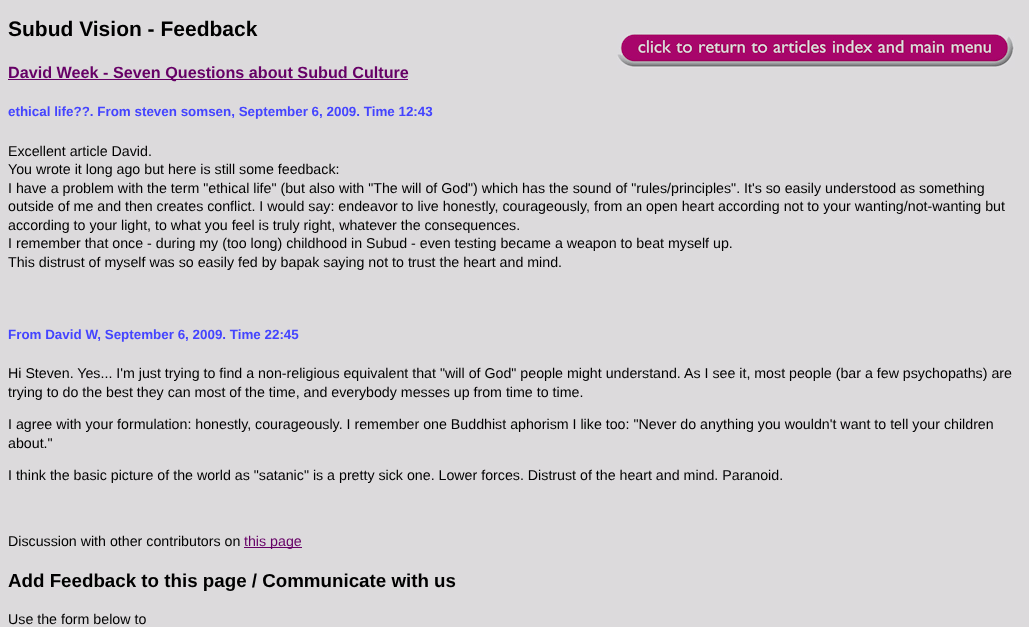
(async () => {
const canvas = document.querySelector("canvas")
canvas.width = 1029
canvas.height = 627
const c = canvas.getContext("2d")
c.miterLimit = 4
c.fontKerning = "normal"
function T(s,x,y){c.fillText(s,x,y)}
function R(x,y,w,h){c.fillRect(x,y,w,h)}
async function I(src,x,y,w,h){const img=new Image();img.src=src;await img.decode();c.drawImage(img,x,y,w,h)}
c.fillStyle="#dcdadc"
R(0,0,1029,627)
c.font="bold 21px Liberation Sans"
c.fillStyle="#000"
T("Subud Vision - Feedback",8,36)
await I("1.png",617,33,398,35)
c.fillStyle="#606"
R(8,79,400,1)
c.font="bold 16.2px Liberation Sans"
T("David Week - Seven Questions about Subud Culture",8,78)
c.font="bold 13.4px Liberation Sans"
c.fillStyle="#44f"
T("ethical life??. From steven somsen, September 6, 2009. Time 12:43",8,116)
c.font="14.22px Liberation Sans"
c.fillStyle="#000"
T("Excellent article David.",8,156)
T("You wrote it long ago but here is still some feedback:",8,174)
T("I have a problem with the term \"ethical life\" (but also with \"The will of God\") which has the sound of \"rules/principles\". It's so easily understood as something",8,193)
T("outside of me and then creates conflict. I would say: endeavor to live honestly, courageously, from an open heart according not to your wanting/not-wanting but",8,211)
T("according to your light, to what you feel is truly right, whatever the consequences.",8,230)
T("I remember that once - during my (too long) childhood in Subud - even testing became a weapon to beat myself up.",8,248)
T("This distrust of myself was so easily fed by bapak saying not to trust the heart and mind.",8,267)
c.font="bold 13.4px Liberation Sans"
c.fillStyle="#44f"
T("From David W, September 6, 2009. Time 22:45",8,339)
c.font="14.22px Liberation Sans"
c.fillStyle="#000"
T("Hi Steven. Yes... I'm just trying to find a non-religious equivalent that \"will of God\" people might understand. As I see it, most people (bar a few psychopaths) are",8,378)
T("trying to do the best they can most of the time, and everybody messes up from time to time.",8,397)
T("I agree with your formulation: honestly, courageously. I remember one Buddhist aphorism I like too: \"Never do anything you wouldn't want to tell your children",8,429)
T("about.\"",8,448)
T("I think the basic picture of the world as \"satanic\" is a pretty sick one. Lower forces. Distrust of the heart and mind. Paranoid.",8,480)
T("Discussion with other contributors on",8,546)
c.fillStyle="#606"
R(244,547,58,1)
T("this page",244,546)
c.font="bold 18.75px Liberation Sans"
c.fillStyle="#000"
T("Add Feedback to this page / Communicate with us",8,587)
c.font="14.22px Liberation Sans"
T("Use the form below to",8,624)
})()
